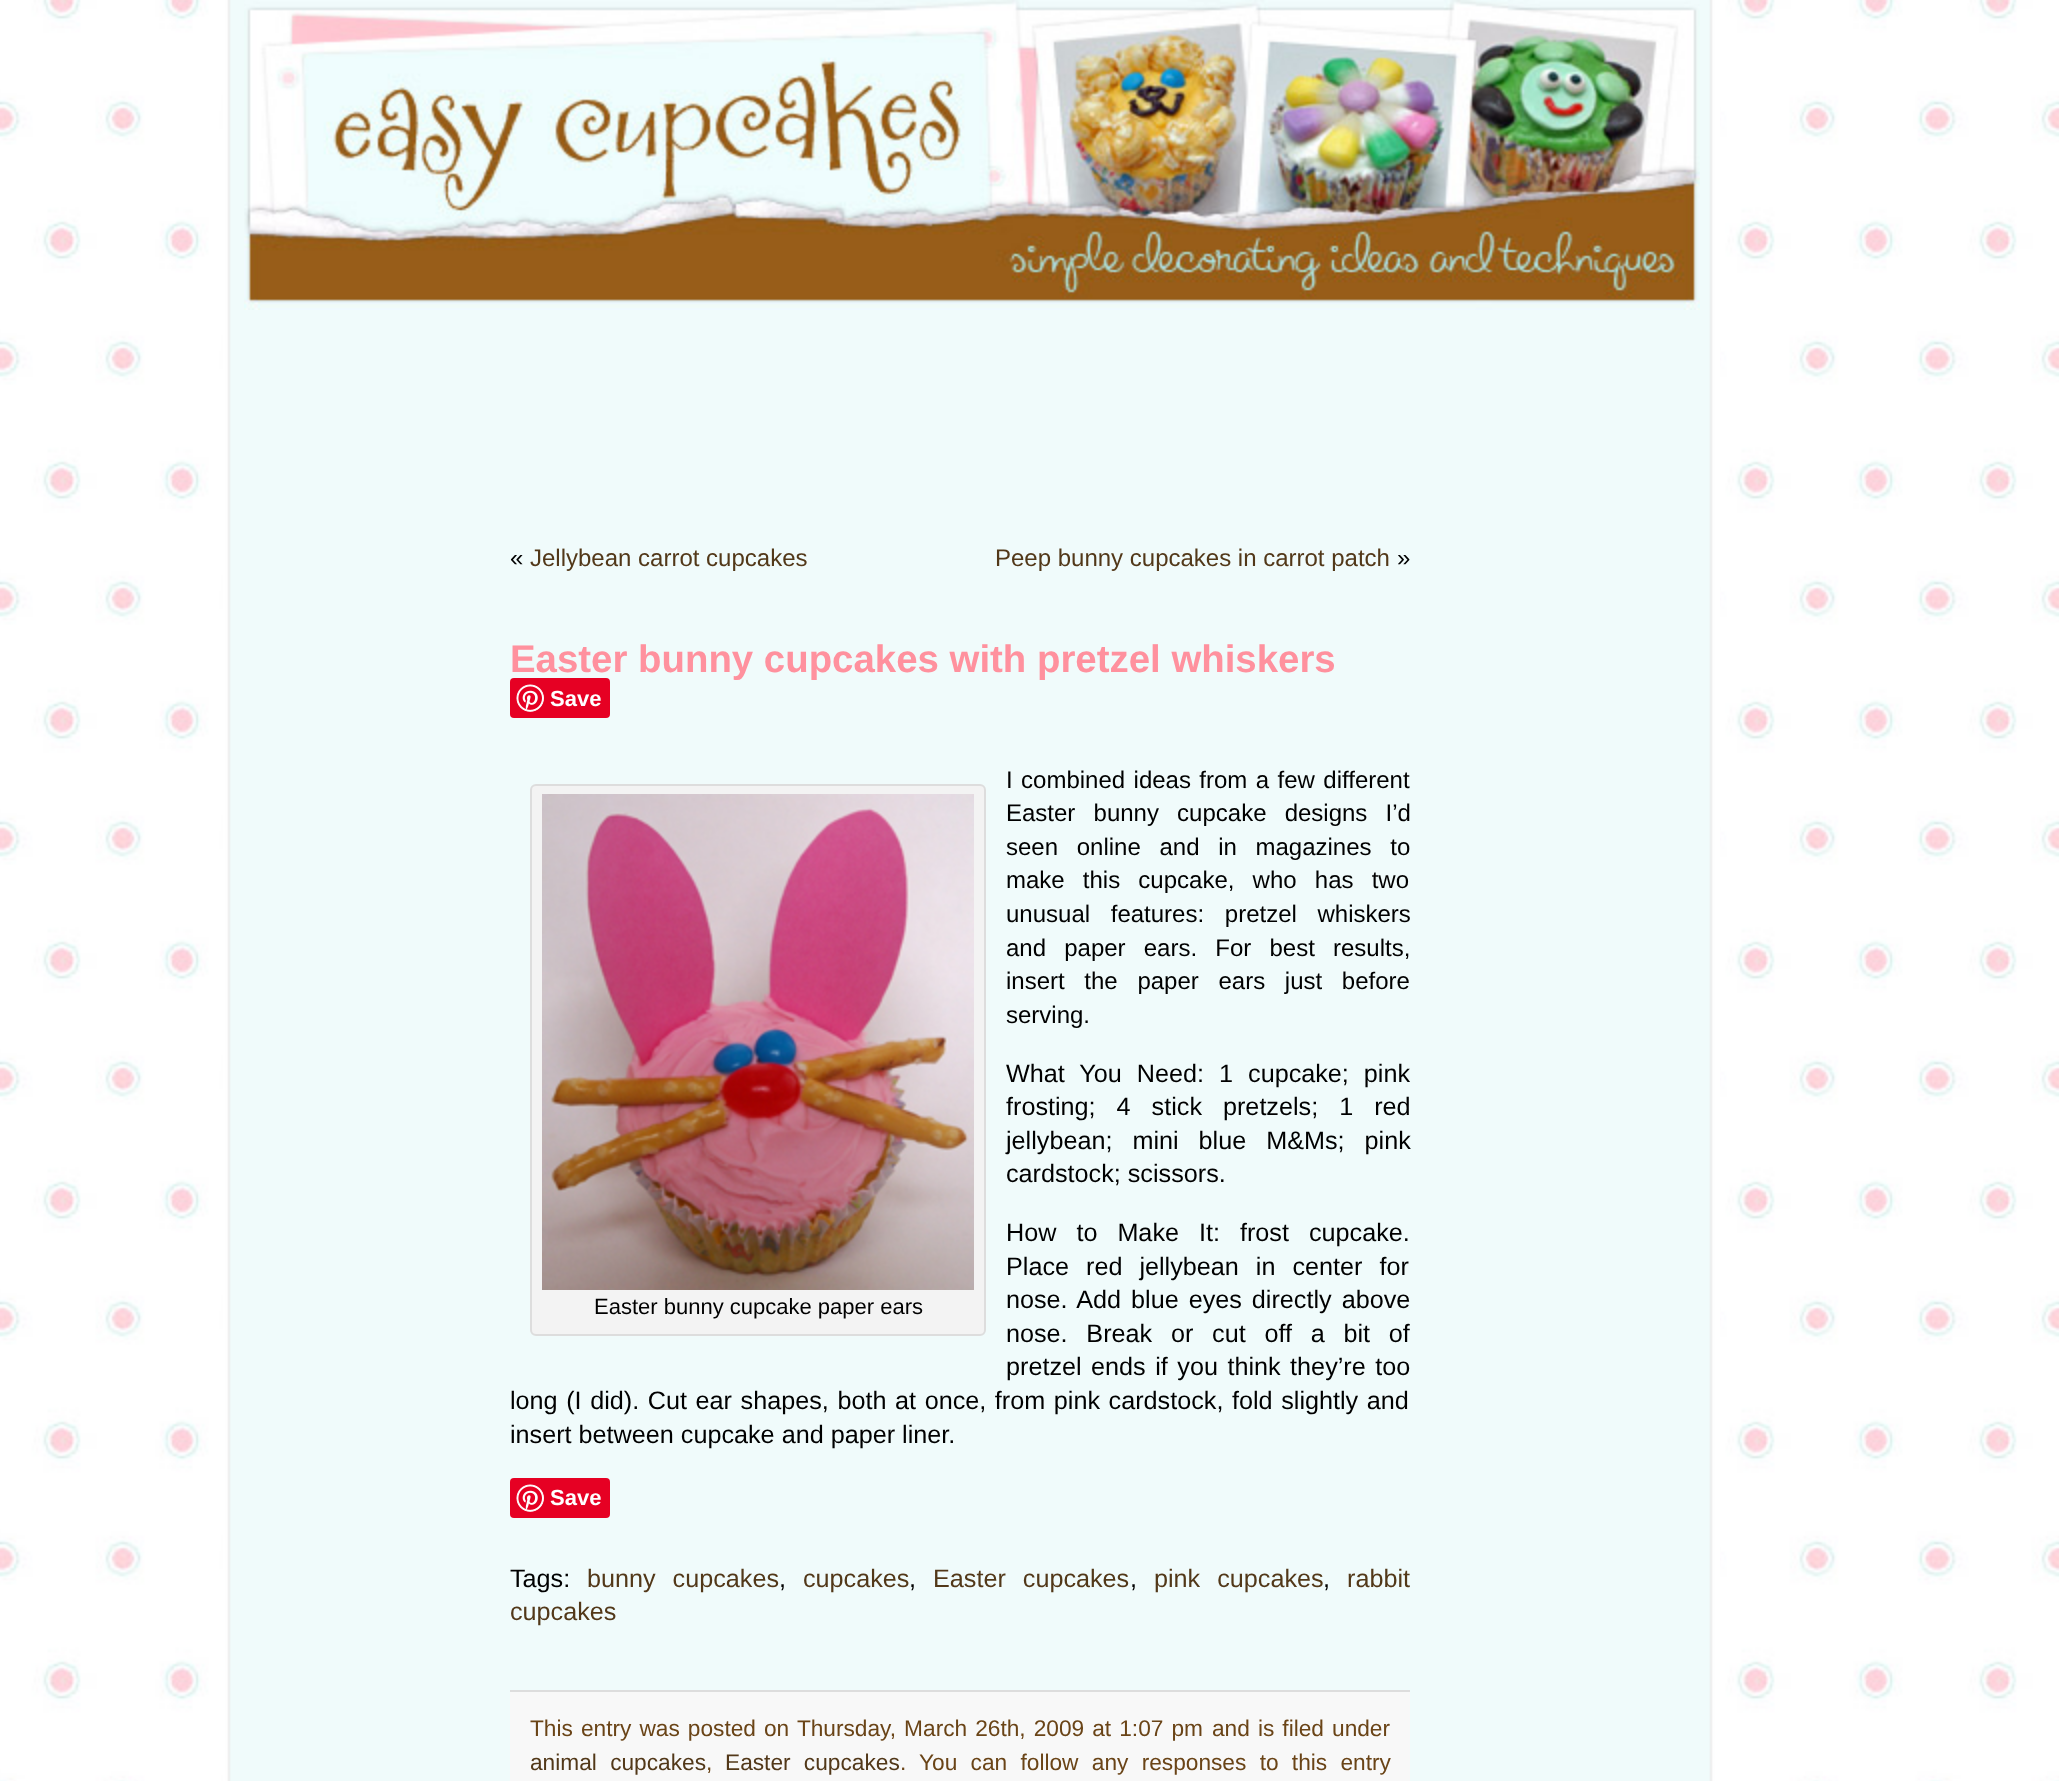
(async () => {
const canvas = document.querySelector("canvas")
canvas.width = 2059
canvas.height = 1781
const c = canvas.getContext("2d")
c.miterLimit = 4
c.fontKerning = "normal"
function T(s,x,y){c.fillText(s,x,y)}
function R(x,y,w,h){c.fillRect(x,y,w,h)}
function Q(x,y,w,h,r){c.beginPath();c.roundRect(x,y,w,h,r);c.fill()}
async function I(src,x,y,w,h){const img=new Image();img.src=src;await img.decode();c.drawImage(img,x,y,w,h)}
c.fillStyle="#fff"
R(0,0,2059,1781)
await I("1.png",0,0,2059,1781)
await I("2.png",223,0,1497,1781)
await I("3.png",244,0,1456,310)
c.font="24px Liberation Sans"
c.fillStyle="#000"
T("«",510,566)
c.fillStyle="#523819"
T("Jellybean carrot cupcakes",530,566)
T("Peep bunny cupcakes in carrot patch",995,566)
c.fillStyle="#000"
T("»",1397,566)
c.font="bold 38.4px Liberation Sans"
c.fillStyle="#ff919e"
T("Easter bunny cupcakes with pretzel whiskers",510,672)
c.fillStyle="#e60023"
Q(510,678,100,40,4)
await I("4.png",516,684,28,28)
c.font="bold 22px Liberation Sans"
c.fillStyle="#fff"
T("Save",550,706)
c.wordSpacing="1.75px"
c.font="24px Liberation Sans"
c.fillStyle="#000"
T("I combined ideas from a few different",1006,788)
c.wordSpacing="11.5px"
T("Easter bunny cupcake designs I’d",1006,821)
c.wordSpacing="12px"
T("seen online and in magazines to",1006,855)
c.wordSpacing="11.5px"
T("make this cupcake, who has two",1006,888)
c.wordSpacing="14px"
T("unusual features: pretzel whiskers",1006,922)
c.wordSpacing="11.5px"
T("and paper ears. For best results,",1006,956)
c.wordSpacing="13px"
T("insert the paper ears just before",1006,989)
c.wordSpacing="0px"
T("serving.",1006,1023)
c.wordSpacing="8px"
c.font="25.2px Liberation Sans"
T("What You Need: 1 cupcake; pink",1006,1082)
c.wordSpacing="14px"
T("frosting; 4 stick pretzels; 1 red",1006,1115)
c.wordSpacing="13px"
T("jellybean; mini blue M&Ms; pink",1006,1149)
c.wordSpacing="0px"
T("cardstock; scissors.",1006,1182)
c.wordSpacing="13px"
T("How to Make It: frost cupcake.",1006,1241)
c.wordSpacing="10px"
T("Place red jellybean in center for",1006,1275)
c.wordSpacing="3px"
T("nose. Add blue eyes directly above",1006,1308)
c.wordSpacing="11.75px"
T("nose. Break or cut off a bit of",1006,1342)
c.wordSpacing="2.5px"
T("pretzel ends if you think they’re too",1006,1375)
c.wordSpacing="1.6px"
T("long (I did). Cut ear shapes, both at once, from pink cardstock, fold slightly and",510,1409)
c.wordSpacing="0px"
T("insert between cupcake and paper liner.",510,1443)
c.fillStyle="#f3f3f3"
c.beginPath()
c.roundRect(531,785,454,550,5)
c.fill()
c.strokeStyle="#ddd"
c.lineWidth=2
c.stroke()
await I("5.png",542,794,432,496)
c.font="22px Liberation Sans"
c.fillStyle="#000"
T("Easter bunny cupcake paper ears",594,1314)
c.fillStyle="#e60023"
Q(510,1478,100,40,4)
await I("4.png",516,1484,28,28)
c.font="bold 22px Liberation Sans"
c.fillStyle="#fff"
T("Save",550,1505)
c.font="25.2px Liberation Sans"
c.fillStyle="#000"
T("Tags:",510,1587)
c.wordSpacing="10px"
c.fillStyle="#523819"
T("bunny cupcakes",587,1587)
c.wordSpacing="0px"
c.fillStyle="#000"
T(",",779,1587)
c.fillStyle="#523819"
T("cupcakes",803,1587)
c.fillStyle="#000"
T(",",909,1587)
c.wordSpacing="10px"
c.fillStyle="#523819"
T("Easter cupcakes",933,1587)
c.wordSpacing="0px"
c.fillStyle="#000"
T(",",1130,1587)
c.wordSpacing="10px"
c.fillStyle="#523819"
T("pink cupcakes",1154,1587)
c.wordSpacing="0px"
c.fillStyle="#000"
T(",",1323,1587)
c.fillStyle="#523819"
T("rabbit",1347,1587)
T("cupcakes",510,1620)
c.fillStyle="#f8f8f8"
R(510,1692,900,89)
c.fillStyle="#ddd"
R(510,1690,900,2)
c.wordSpacing="1.75px"
c.font="22.7px Liberation Sans"
c.fillStyle="#6a4417"
T("This entry was posted",530,1736)
T("on Thursday, March 26th, 2009 at 1:07 pm",764,1736)
T("and is filed under",1212,1736)
c.wordSpacing="7px"
c.fillStyle="#523819"
T("animal cupcakes",530,1770)
c.wordSpacing="0px"
c.fillStyle="#6a4417"
T(",",706,1770)
c.wordSpacing="7px"
c.fillStyle="#523819"
T("Easter cupcakes",725,1770)
c.wordSpacing="0px"
c.fillStyle="#6a4417"
T(".",900,1770)
c.wordSpacing="7px"
T("You can follow any responses to this entry",919,1770)
})()
